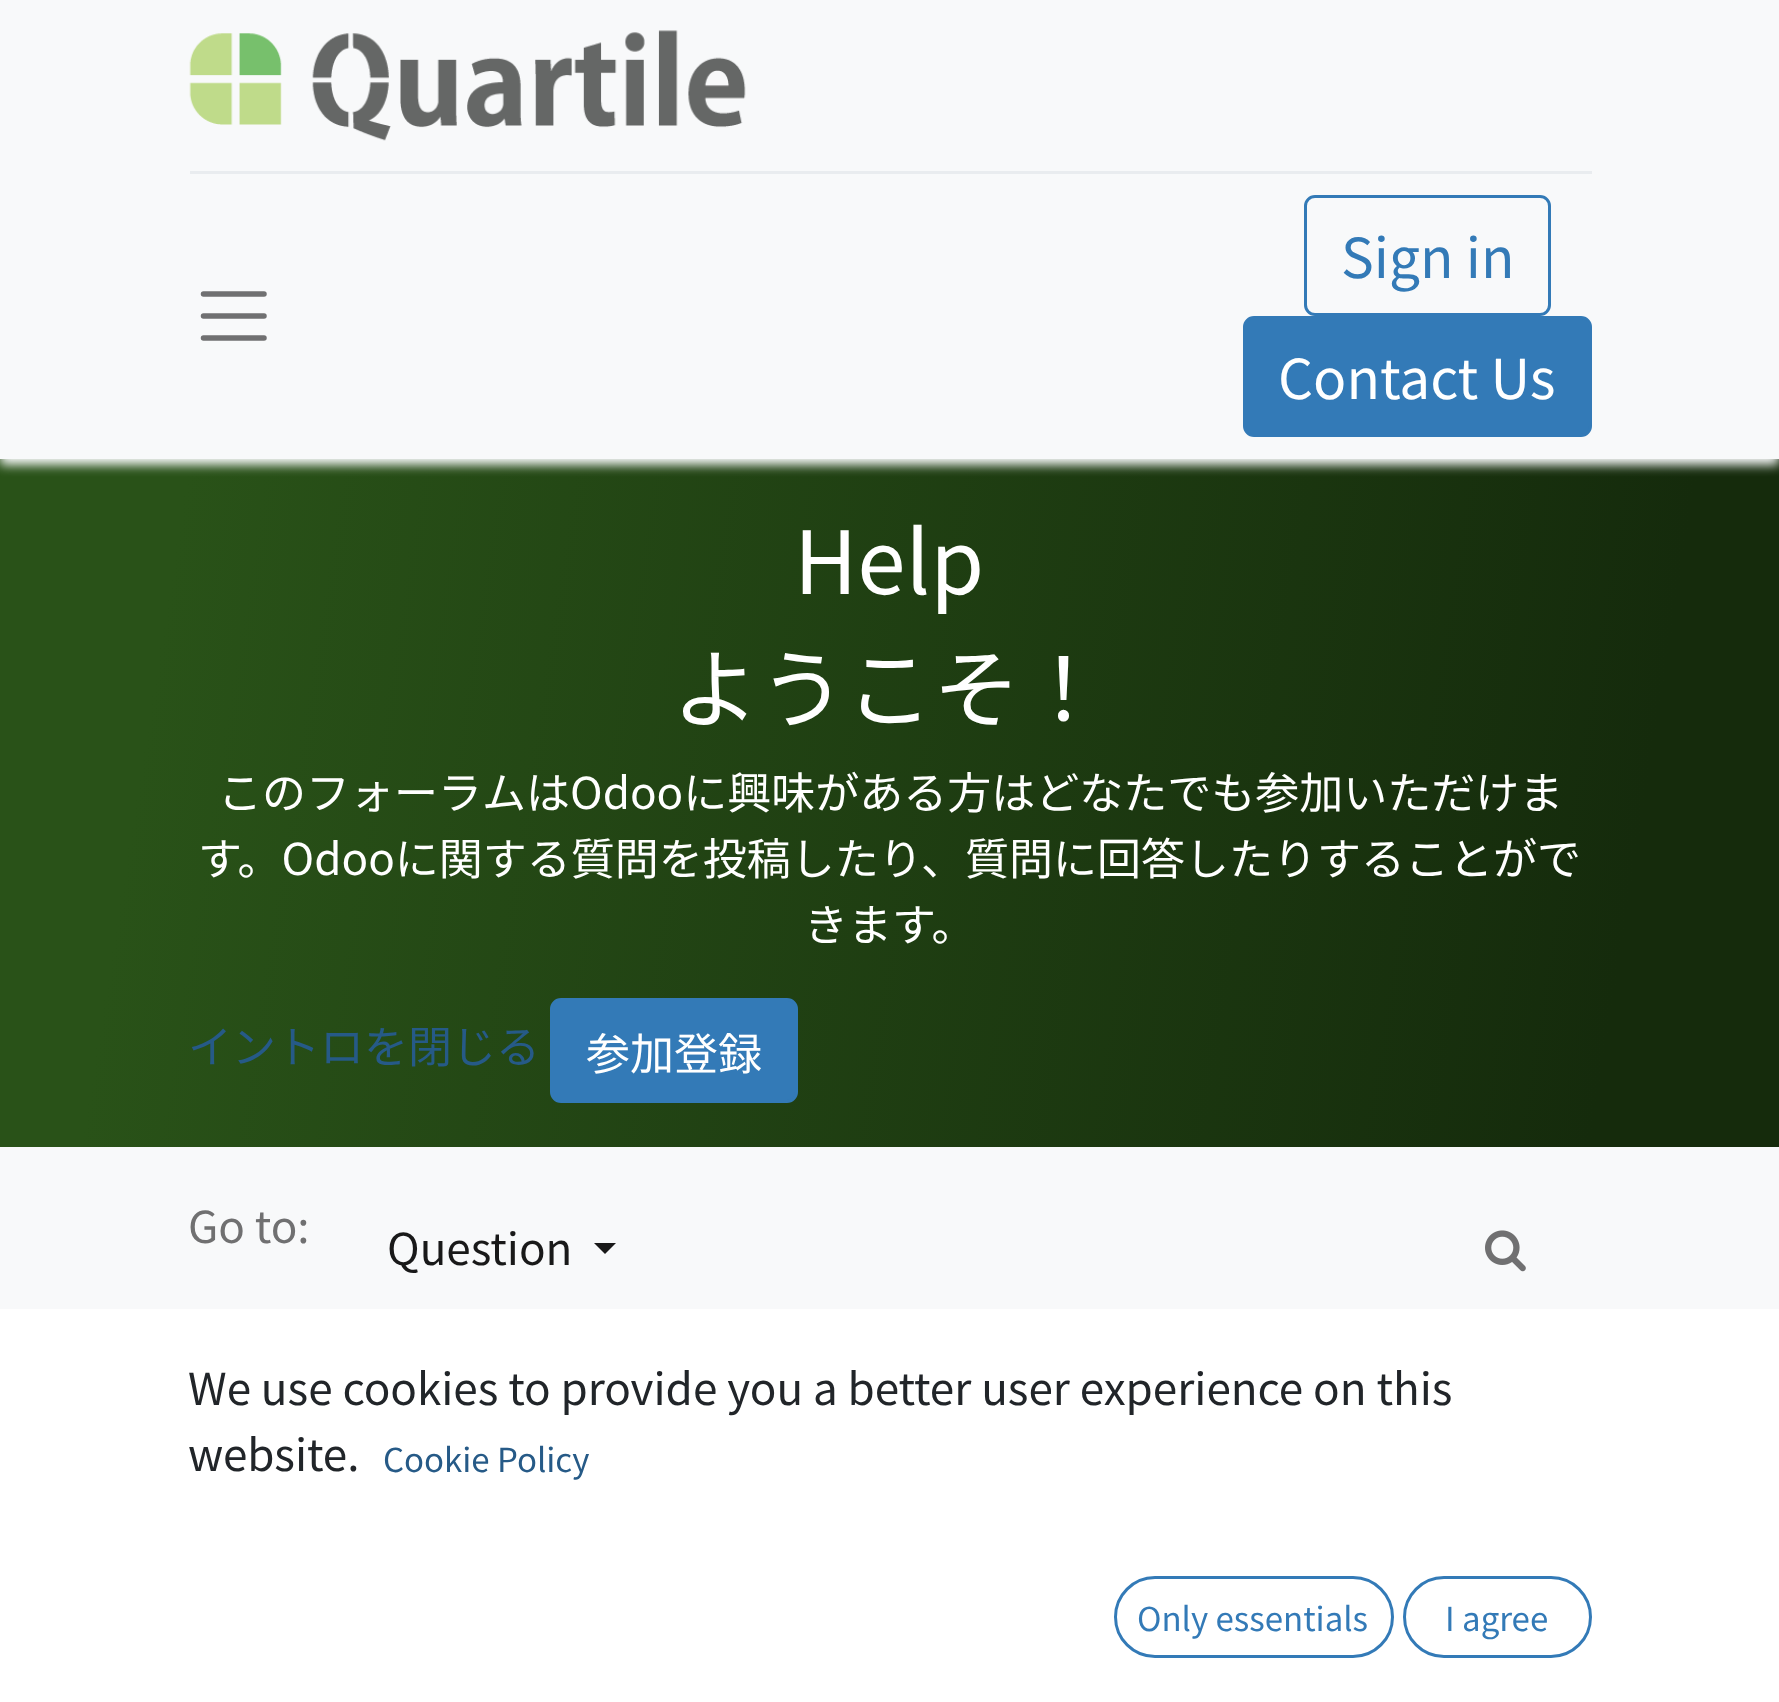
(async () => {
const canvas = document.querySelector("canvas")
canvas.width = 1779
canvas.height = 1702
const c = canvas.getContext("2d")
c.miterLimit = 4
c.fontKerning = "normal"
function T(s,x,y){c.fillText(s,x,y)}
function R(x,y,w,h){c.fillRect(x,y,w,h)}
async function I(src,x,y,w,h){const img=new Image();img.src=src;await img.decode();c.drawImage(img,x,y,w,h)}
let gradient, path
c.fillStyle="#fff"
R(0,0,1779,1702)
gradient = c.createLinearGradient(-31,657,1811,949)
gradient.addColorStop(.1,"#295218")
gradient.addColorStop(.9,"#152b0c")
c.fillStyle = gradient
R(0,459,1779,688)
c.fillStyle="#f8f9fa"
c.filter="blur(5.5px)"
c.beginPath()
c.rect(0,6,1779,459)
c.fill()
c.filter="none"
R(0,0,1779,459)
await I("1.png",189,30,557,111)
c.fillStyle="#e9ecef"
R(190,171,1402,3)
path = new Path2D("M203.5 294h60.5m-60.5 22h60.5m-60.5 22h60.5")
c.strokeStyle="#707071"
c.lineWidth=5.5
c.lineCap="round"
c.stroke(path)
c.beginPath()
c.roundRect(1305.5,196.5,244,118,9.5)
c.strokeStyle="#337ab7"
c.lineWidth=3
c.stroke()
c.font="55px Noto Sans JP"
c.fillStyle="#337ab7"
T("Sign in",1341,278)
c.beginPath()
c.roundRect(1244.5,317.5,346,118,9.5)
c.fill()
c.stroke()
c.fillStyle="#fff"
T("Contact Us",1278,399)
c.font="87px Noto Sans JP"
T("Help",794,594)
T("ようこそ！",672,721)
c.font="44px Noto Sans JP"
T("このフォーラムはOdooに興味がある方はどなたでも参加いただけま",218,809)
T("す。Odooに関する質問を投稿したり、質問に回答したりすることがで",198,875)
T("きます。",804,941)
c.fillStyle="#265a87"
T("イントロを閉じる",188,1063)
c.fillStyle="#337ab7"
c.beginPath()
c.roundRect(551.5,999.5,245,102,9.5)
c.fill()
c.stroke()
c.fillStyle="#fff"
T("参加登録",586,1070)
c.fillStyle="#f8f9fa"
R(0,1147,1779,162)
c.fillStyle="#707071"
T("Go to:",188,1243)
c.fillStyle="#191919"
T("Question",387,1265)
path = new Path2D("M594 1243h22l-11 11z")
c.fill(path)
await I("2.png",1485,1230,41,42)
c.fillStyle="#212529"
T("We use cookies to provide you a better user experience on this",188,1405)
T("website.",188,1471)
c.font="33px Noto Sans JP"
c.fillStyle="#265a87"
T("Cookie Policy",383,1472)
c.beginPath()
c.roundRect(1115.5,1577.5,277,79,39.5)
c.stroke()
c.fillStyle="#337ab7"
T("Only essentials",1137,1631)
c.beginPath()
c.roundRect(1404.5,1577.5,186,79,39.5)
c.stroke()
T("I agree",1445,1631)
})()
